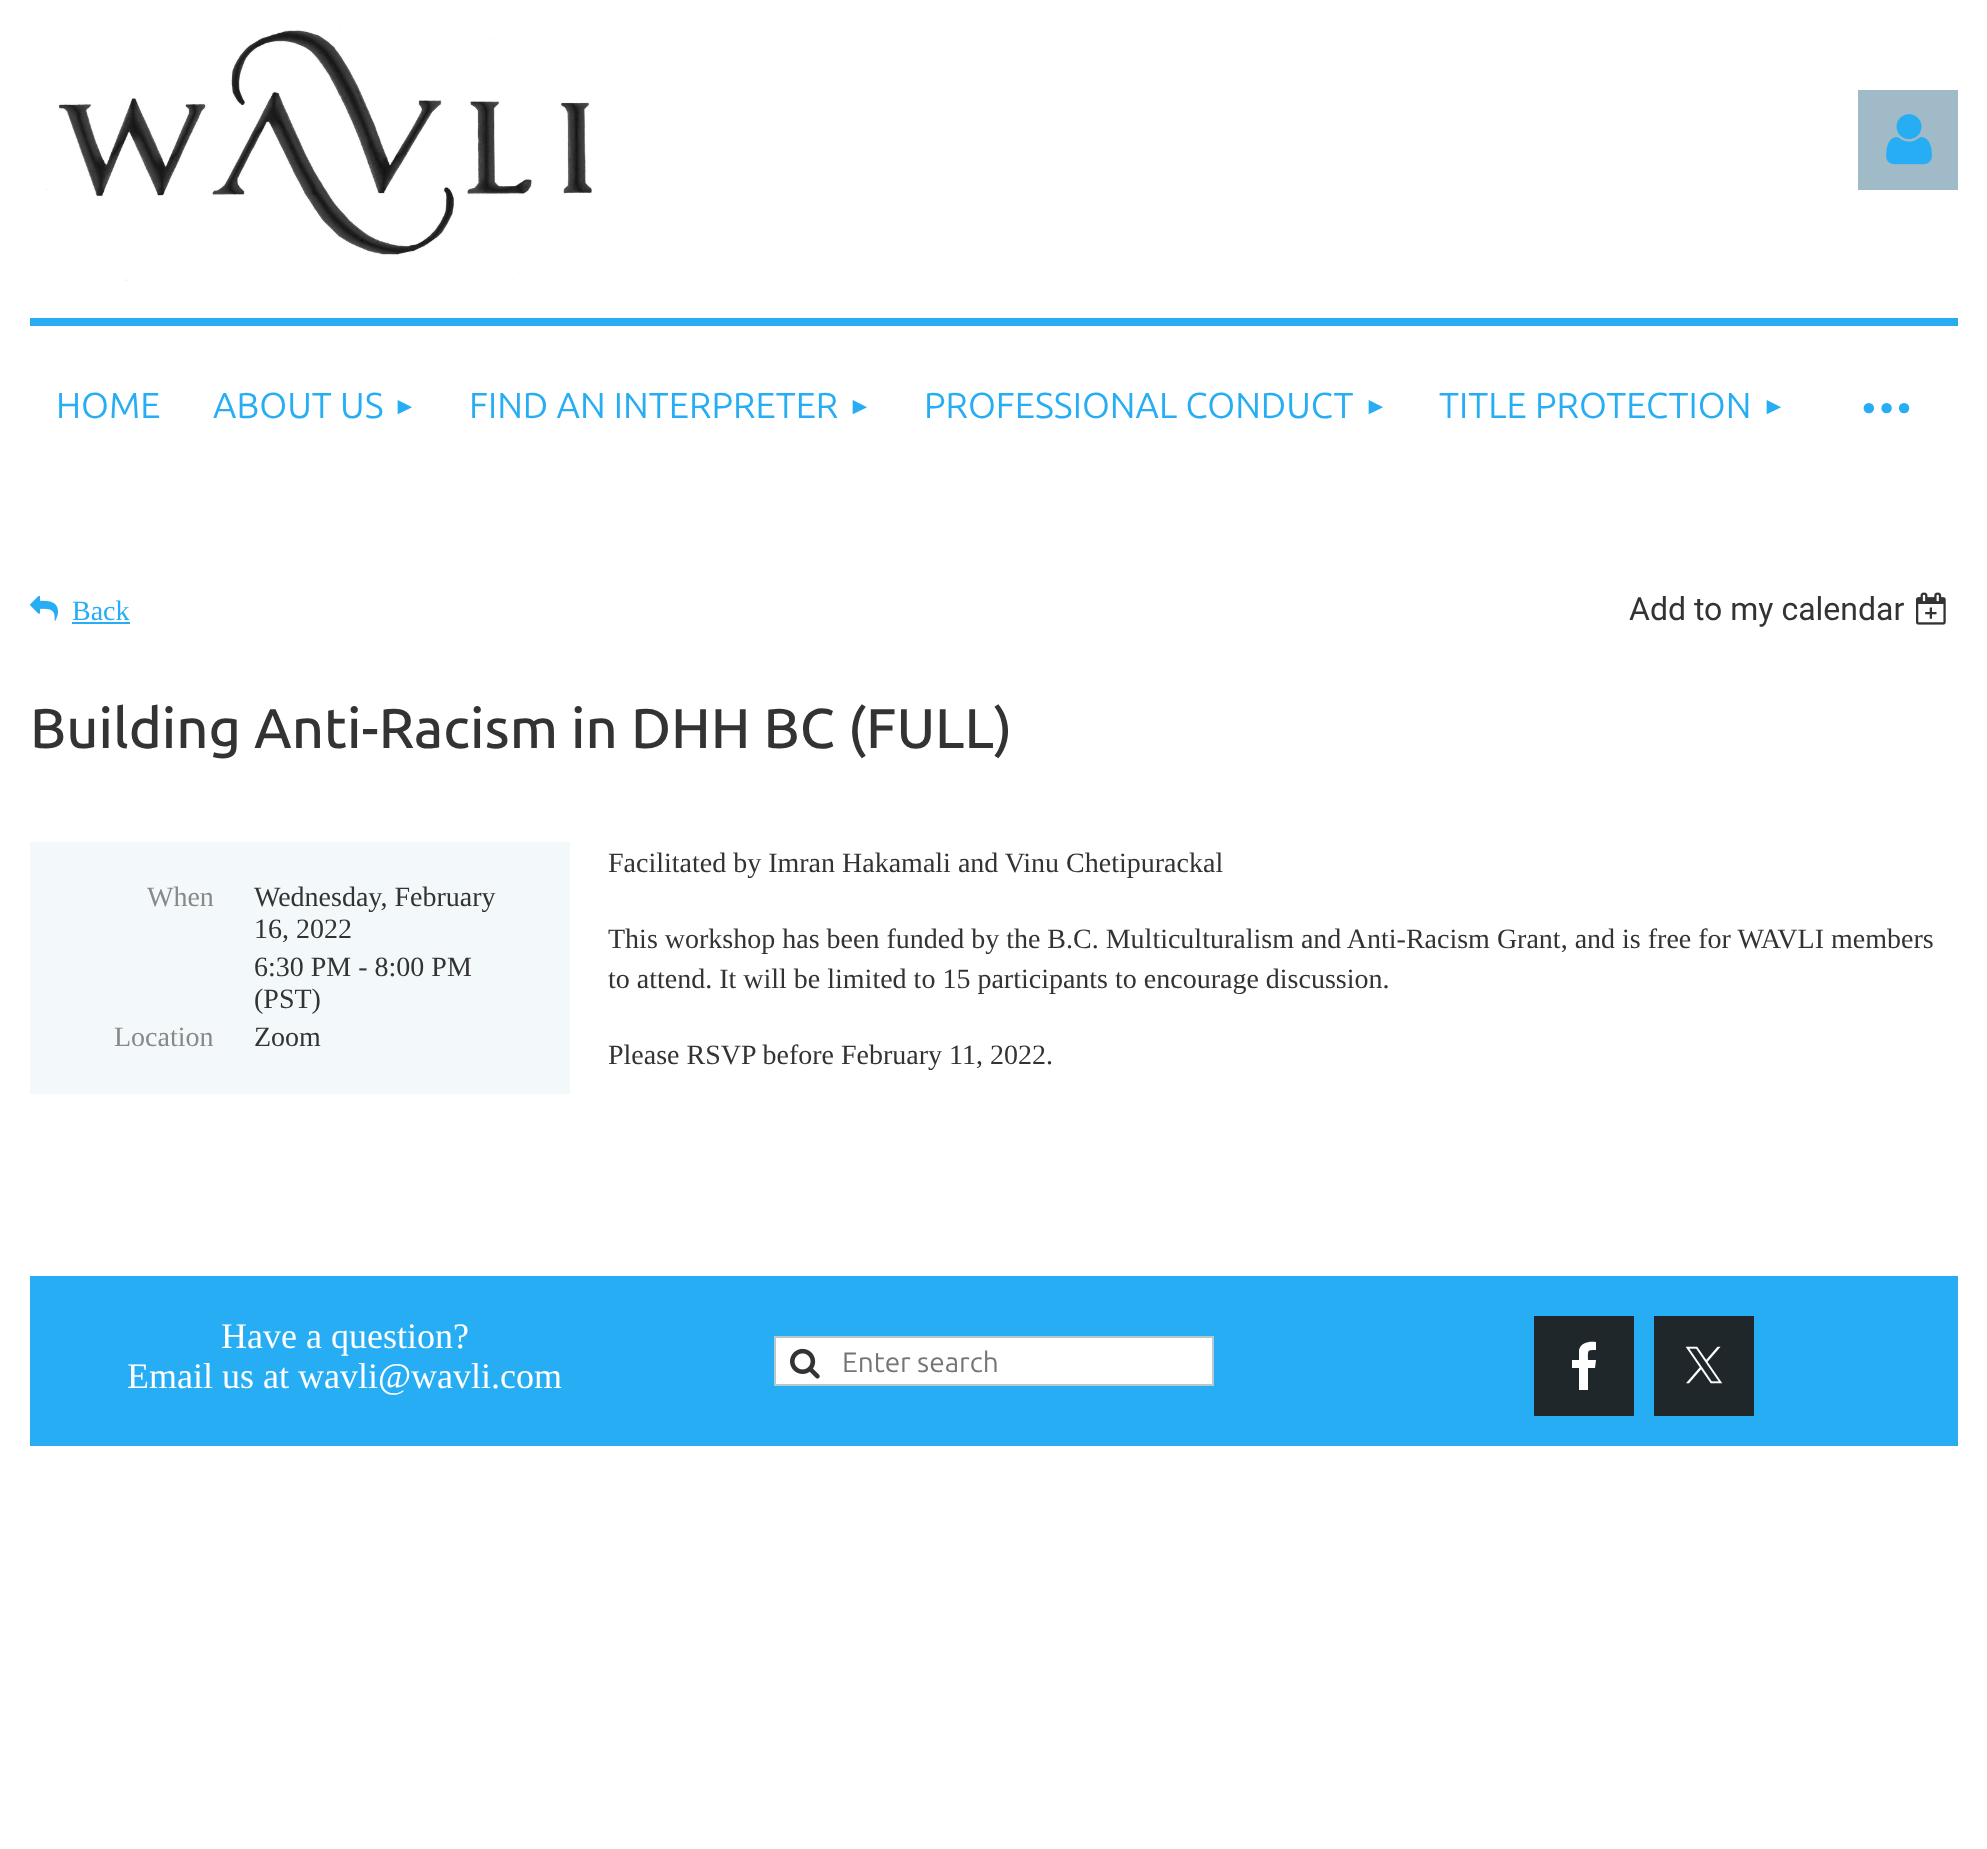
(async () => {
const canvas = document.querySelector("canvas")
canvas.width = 1987
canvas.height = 1849
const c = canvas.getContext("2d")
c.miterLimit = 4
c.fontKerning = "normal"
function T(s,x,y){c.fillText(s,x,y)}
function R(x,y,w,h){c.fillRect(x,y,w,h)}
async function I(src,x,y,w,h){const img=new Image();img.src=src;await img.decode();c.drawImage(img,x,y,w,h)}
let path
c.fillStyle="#fff"
R(0,0,1987,1849)
await I("1.png",45,21,547,260)
c.fillStyle="#a0bac7"
R(1858,90,100,100)
await I("2.png",1886,114,46,51)
c.fillStyle="#26adf4"
R(30,318,1928,8)
c.font="36px Ubuntu"
T("HOME",56,418)
T("ABOUT US",213,418)
c.font="24px Liberation Sans"
T("►",393,414)
c.font="36px Ubuntu"
T("FIND AN INTERPRETER",469,418)
c.font="24px Liberation Sans"
T("►",848,414)
c.font="36px Ubuntu"
T("PROFESSIONAL CONDUCT",924,418)
c.font="24px Liberation Sans"
T("►",1364,414)
c.font="36px Ubuntu"
T("TITLE PROTECTION",1439,418)
c.font="24px Liberation Sans"
T("►",1762,414)
c.letterSpacing="-4px"
c.font="88px Ubuntu"
T("···",1858,434)
await I("3.png",30,595,28,26)
c.letterSpacing="0px"
c.font="28px Liberation Serif"
T("Back",72,620)
R(72,622,58,2)
c.font="32px Roboto"
c.fillStyle="#333"
T("Add to my calendar",1629,620)
await I("4.png",1916,592,30,33)
c.font="500 56px Ubuntu"
T("Building Anti-Racism in DHH BC (FULL)",30,748)
c.fillStyle="#f3f8fa"
R(30,842,540,252)
c.font="28px Liberation Serif"
c.fillStyle="#898989"
T("When",147,906)
c.fillStyle="#333"
T("Wednesday, February",254,906)
T("16, 2022",254,938)
T("6:30 PM - 8:00 PM",254,976)
T("(PST)",254,1008)
c.fillStyle="#898989"
T("Location",114,1046)
c.fillStyle="#333"
T("Zoom",254,1046)
T("Facilitated by Imran Hakamali and Vinu Chetipurackal",608,872)
T("This workshop has been funded by the B.C. Multiculturalism and Anti-Racism Grant, and is free for WAVLI members",608,948)
T("to attend. It will be limited to 15 participants to encourage discussion.",608,988)
T("Please RSVP before February 11, 2022.",608,1064)
c.fillStyle="#26adf4"
R(30,1276,1928,170)
c.font="36px Liberation Serif"
c.fillStyle="#fff"
T("Have a question?",221,1348)
T("Email us at wavli@wavli.com",127,1388)
c.beginPath()
c.rect(775,1337,438,48)
c.fill()
c.strokeStyle="#b8c6cd"
c.lineWidth=2
c.stroke()
await I("5.png",790,1348,30,31)
c.font="28px Ubuntu"
c.fillStyle="#757575"
T("Enter search",842,1372)
c.fillStyle="#1f272b"
R(1534,1316,100,100)
c.fillStyle="#fff"
path = new Path2D("M1596 1350c-9 0-8 0-8 10h8l-1 8h-7v22h-9v-22h-7v-8h7v-10c2-8 11-9 17-8z")
c.fill(path)
c.fillStyle="#1f272b"
R(1654,1316,100,100)
await I("6.png",1685,1346,38,38)
})()
